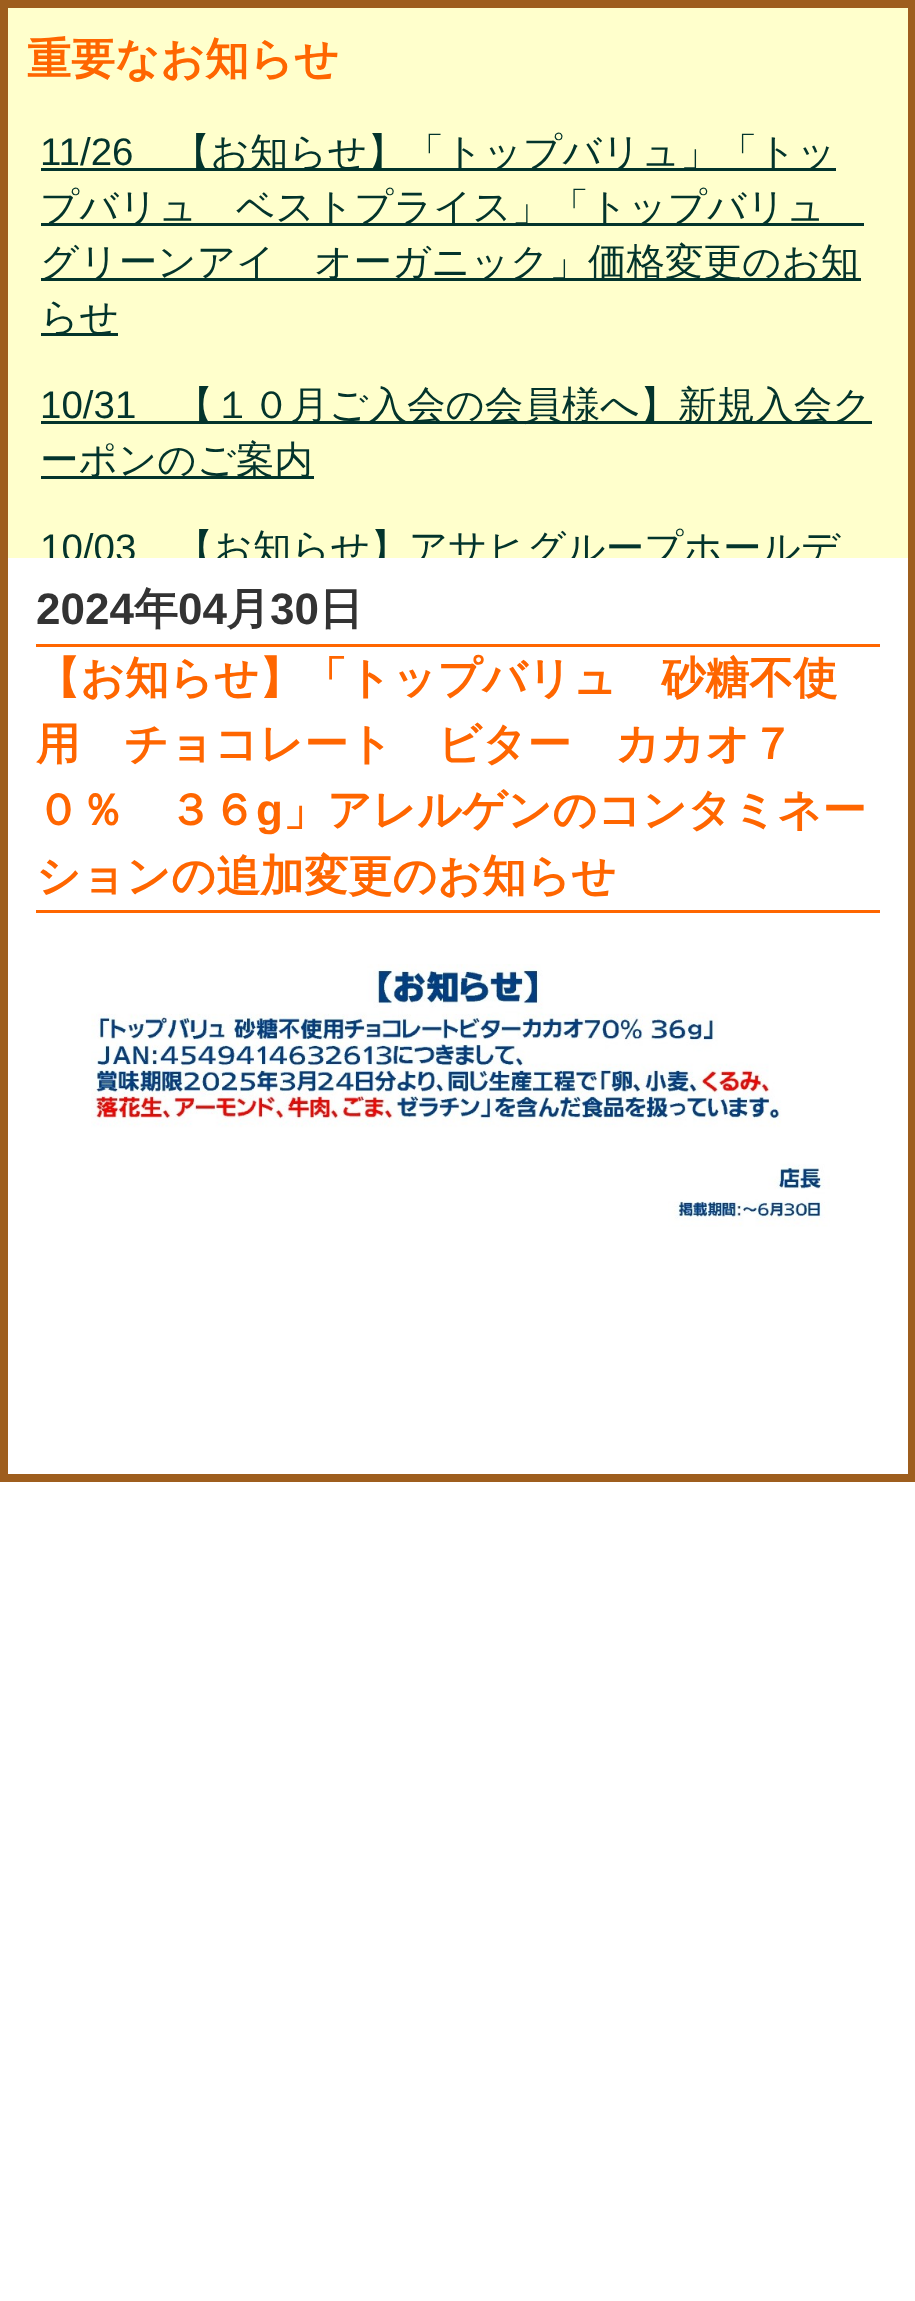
(async () => {
const canvas = document.querySelector("canvas")
canvas.width = 915
canvas.height = 2301
const c = canvas.getContext("2d")
c.miterLimit = 4
c.fontKerning = "normal"
function T(s,x,y){c.fillText(s,x,y)}
function R(x,y,w,h){c.fillRect(x,y,w,h)}
async function I(src,x,y,w,h){const img=new Image();img.src=src;await img.decode();c.drawImage(img,x,y,w,h)}
c.fillStyle="#fff"
R(0,0,915,2301)
c.fillStyle="#9e5e1e"
R(0,0,915,1482)
c.fillStyle="#ffc"
R(8,8,900,550)
c.font="bold 44px WenQuanYi Zen Hei"
c.fillStyle="#f60"
T("重要なお知らせ",27,74)
c.font="38.5px Liberation Sans"
c.fillStyle="#03342c"
T("11/26",40,165)
R(41,168,795,3)
c.font="500 38.5px WenQuanYi Zen Hei"
T("【お知らせ】「トップバリュ」「トッ",172,165)
R(41,223,823,3)
T("プバリュ　ベストプライス」「トップバリュ",40,220)
R(41,278,820,3)
T("グリーンアイ　オーガニック」価格変更のお知",40,275)
R(41,333,77,3)
T("らせ",40,330)
c.font="38.5px Liberation Sans"
T("10/31",40,418)
R(41,421,831,3)
c.font="500 38.5px WenQuanYi Zen Hei"
T("【１０月ご入会の会員様へ】新規入会ク",175,418)
R(41,476,273,3)
T("ーポンのご案内",40,473)
c.save()
c.beginPath()
c.rect(8,8,900,550)
c.clip()
c.font="38.5px Liberation Sans"
T("10/03",40,561)
c.font="500 38.5px WenQuanYi Zen Hei"
T("【お知らせ】アサヒグループホールデ",175,561)
c.restore()
c.fillStyle="#fff"
R(8,558,900,916)
c.font="bold 44px Liberation Sans"
c.fillStyle="#333"
T("2024",36,624)
c.font="bold 44px WenQuanYi Zen Hei"
T("年",134,624)
c.font="bold 44px Liberation Sans"
T("04",178,624)
c.font="bold 44px WenQuanYi Zen Hei"
T("月",226,624)
c.font="bold 44px Liberation Sans"
T("30",270,624)
c.font="bold 44px WenQuanYi Zen Hei"
T("日",319,624)
c.fillStyle="#f60"
R(36,644,844,3)
R(36,910,844,3)
T("【お知らせ】「トップバリュ　砂糖不使",36,693)
T("用　チョコレート　ビター　カカオ７",36,759)
T("０％　３６",36,825)
c.font="bold 44px Liberation Sans"
T("g",256,825)
c.font="bold 44px WenQuanYi Zen Hei"
T("」アレルゲンのコンタミネー",283,825)
T("ションの追加変更のお知らせ",36,891)
await I("1.png",91,964,739,263)
})()
